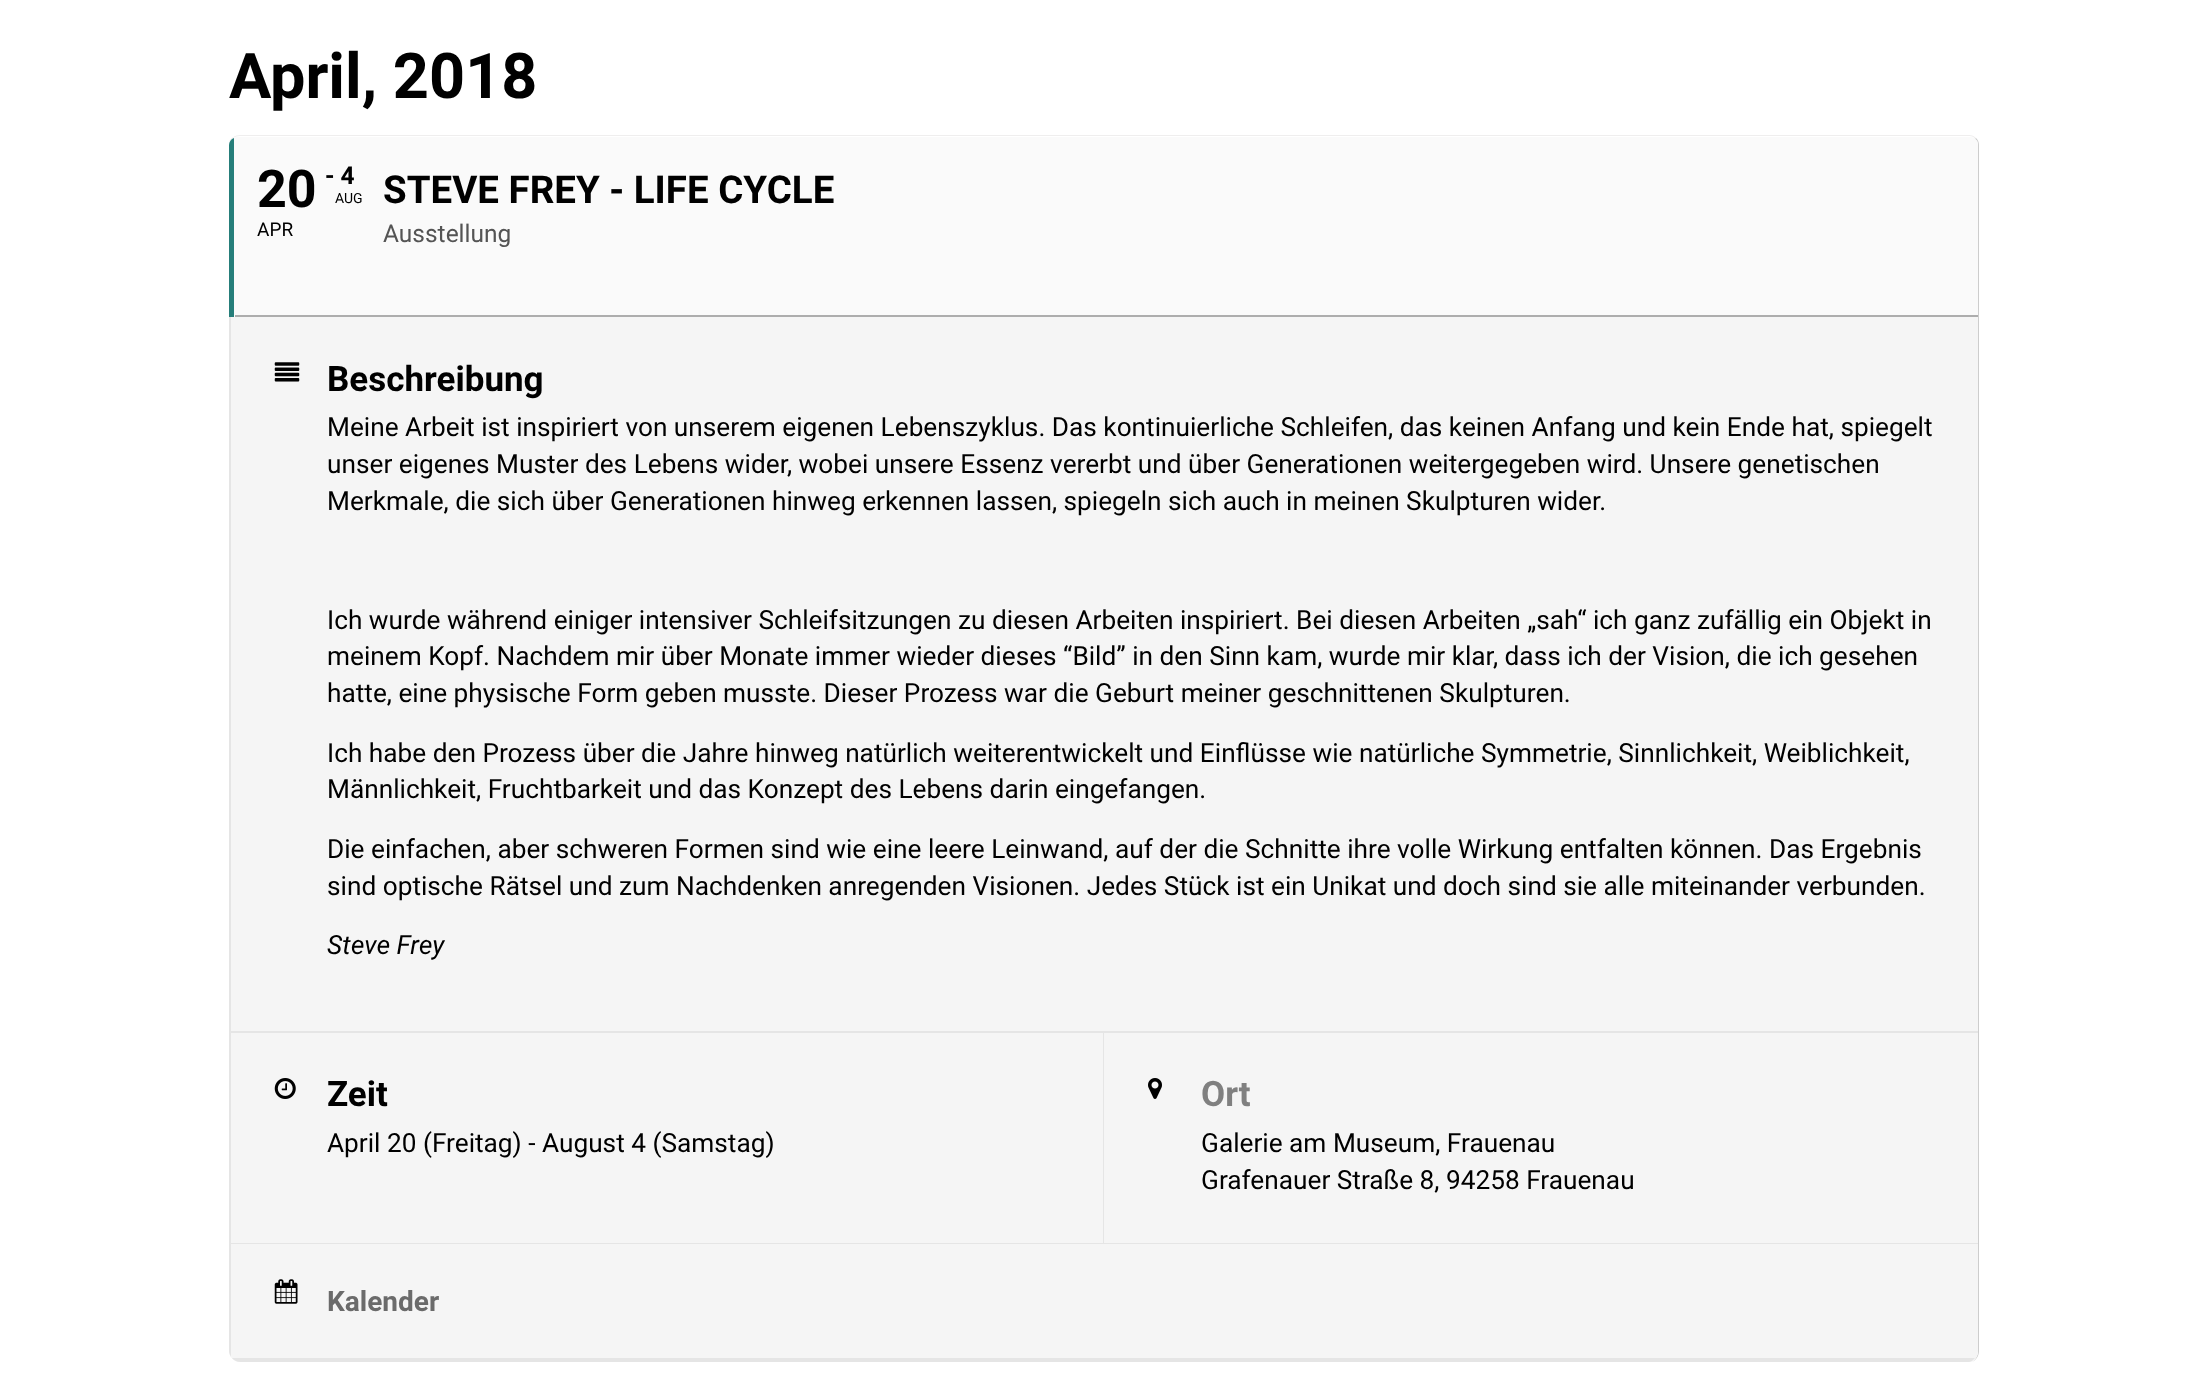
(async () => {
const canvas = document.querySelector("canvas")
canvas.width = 2208
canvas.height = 1375
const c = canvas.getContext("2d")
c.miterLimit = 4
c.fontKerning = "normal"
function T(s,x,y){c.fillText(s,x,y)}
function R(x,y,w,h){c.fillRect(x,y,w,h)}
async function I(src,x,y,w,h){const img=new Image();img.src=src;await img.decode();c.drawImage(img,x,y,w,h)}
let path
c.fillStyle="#fff"
R(0,0,2208,1375)
c.font="bold 63px Roboto"
c.fillStyle="#000"
T("April, 2018",229,98)
c.fillStyle="#efeeee"
path = new Path2D("M240 135h1729c3 0 5 1 7 3l-1 1c-1-2-3-3-6-3h-1729c-5 0-10 3-11 7c0-5 7-8 11-8z")
c.fill(path)
c.fillStyle="#cdcdcd"
path = new Path2D("M1975 139l1-1c2 2 3 4 3 7v1206c0 5-3 9-7 11c3-2 6-6 6-11v-1206c0-3-1-5-3-6z")
c.fill(path)
c.fillStyle="#fafafa"
path = new Path2D("M229 317v-172c0-4 3-7 7-8h1736c3 1 6 4 6 8v172z")
c.fill(path)
c.fillStyle="#267e7a"
path = new Path2D("M229 317v-172c0-3 2-6 5-7v179z")
c.fill(path)
c.font="bold 52px Roboto"
c.fillStyle="#000"
T("20",257,207)
c.font="19px Roboto"
T("APR",257,236)
c.font="bold 24.5px Roboto"
T("- 4",325,184)
c.font="14px Roboto"
T("AUG",335,203)
c.font="bold 38.5px Roboto"
T("STEVE FREY - LIFE CYCLE",383,203)
c.font="24.5px Roboto"
c.fillStyle="#545454"
T("Ausstellung",383,242)
c.fillStyle="#adadad"
R(235,315,1743,2)
c.fillStyle="#f5f5f5"
path = new Path2D("M1978 317v1034c0 6-4 11-9 11h-1729c-6 0-11-5-11-11v-1034z")
c.fill(path)
c.fillStyle="#e5e5e5"
path = new Path2D("M1973 1360c-1 1-3 2-4 2h-1729c-2 0-4-1-6-2z")
c.fill(path)
path = new Path2D("M231 1357c-1-2-2-4-2-6v-1034h2z")
c.fill(path)
R(231,1031,1747,2)
await I("1.png",274,362,26,20)
c.font="bold 35px Roboto"
c.fillStyle="#000"
T("Beschreibung",327,391)
c.font="26.25px Roboto"
T("Meine Arbeit ist inspiriert von unserem eigenen Lebenszyklus. Das kontinuierliche Schleifen, das keinen Anfang und kein Ende hat, spiegelt",327,436)
T("unser eigenes Muster des Lebens wider, wobei unsere Essenz vererbt und über Generationen weitergegeben wird. Unsere genetischen",327,473)
T("Merkmale, die sich über Generationen hinweg erkennen lassen, spiegeln sich auch in meinen Skulpturen wider.",327,510)
T("Ich wurde während einiger intensiver Schleifsitzungen zu diesen Arbeiten inspiriert. Bei diesen Arbeiten „sah“ ich ganz zufällig ein Objekt in",327,629)
T("meinem Kopf. Nachdem mir über Monate immer wieder dieses “Bild” in den Sinn kam, wurde mir klar, dass ich der Vision, die ich gesehen",327,665)
T("hatte, eine physische Form geben musste. Dieser Prozess war die Geburt meiner geschnittenen Skulpturen.",327,702)
T("Ich habe den Prozess über die Jahre hinweg natürlich weiterentwickelt und Einflüsse wie natürliche Symmetrie, Sinnlichkeit, Weiblichkeit,",327,762)
T("Männlichkeit, Fruchtbarkeit und das Konzept des Lebens darin eingefangen.",327,798)
T("Die einfachen, aber schweren Formen sind wie eine leere Leinwand, auf der die Schnitte ihre volle Wirkung entfalten können. Das Ergebnis",327,858)
T("sind optische Rätsel und zum Nachdenken anregenden Visionen. Jedes Stück ist ein Unikat und doch sind sie alle miteinander verbunden.",327,895)
c.font="italic 26.25px Roboto"
T("Steve Frey",327,954)
c.fillStyle="#e5e5e5"
R(231,1243,1747,1)
R(1103,1033,1,210)
await I("2.png",274,1078,22,21)
c.font="bold 35px Roboto"
c.fillStyle="#000"
T("Zeit",327,1106)
c.font="26.25px Roboto"
T("April 20 (Freitag) - August 4 (Samstag)",327,1152)
await I("3.png",1148,1078,14,21)
c.font="bold 35px Roboto"
c.fillStyle="#808080"
T("Ort",1201,1106)
c.font="26.25px Roboto"
c.fillStyle="#000"
T("Galerie am Museum, Frauenau",1201,1152)
T("Grafenauer Straße 8, 94258 Frauenau",1201,1189)
c.fillStyle="#f5f5f5"
path = new Path2D("M231 1244h1747v107c0 4-2 7-5 9h-1739l-3-3z")
c.fill(path)
c.fillStyle="#e5e5e5"
path = new Path2D("M234 1360l-2-2h1743l-2 2z")
c.fill(path)
await I("4.png",274,1279,24,25)
c.font="bold 28px Roboto"
c.fillStyle="#6b6b6b"
T("Kalender",327,1311)
})()
